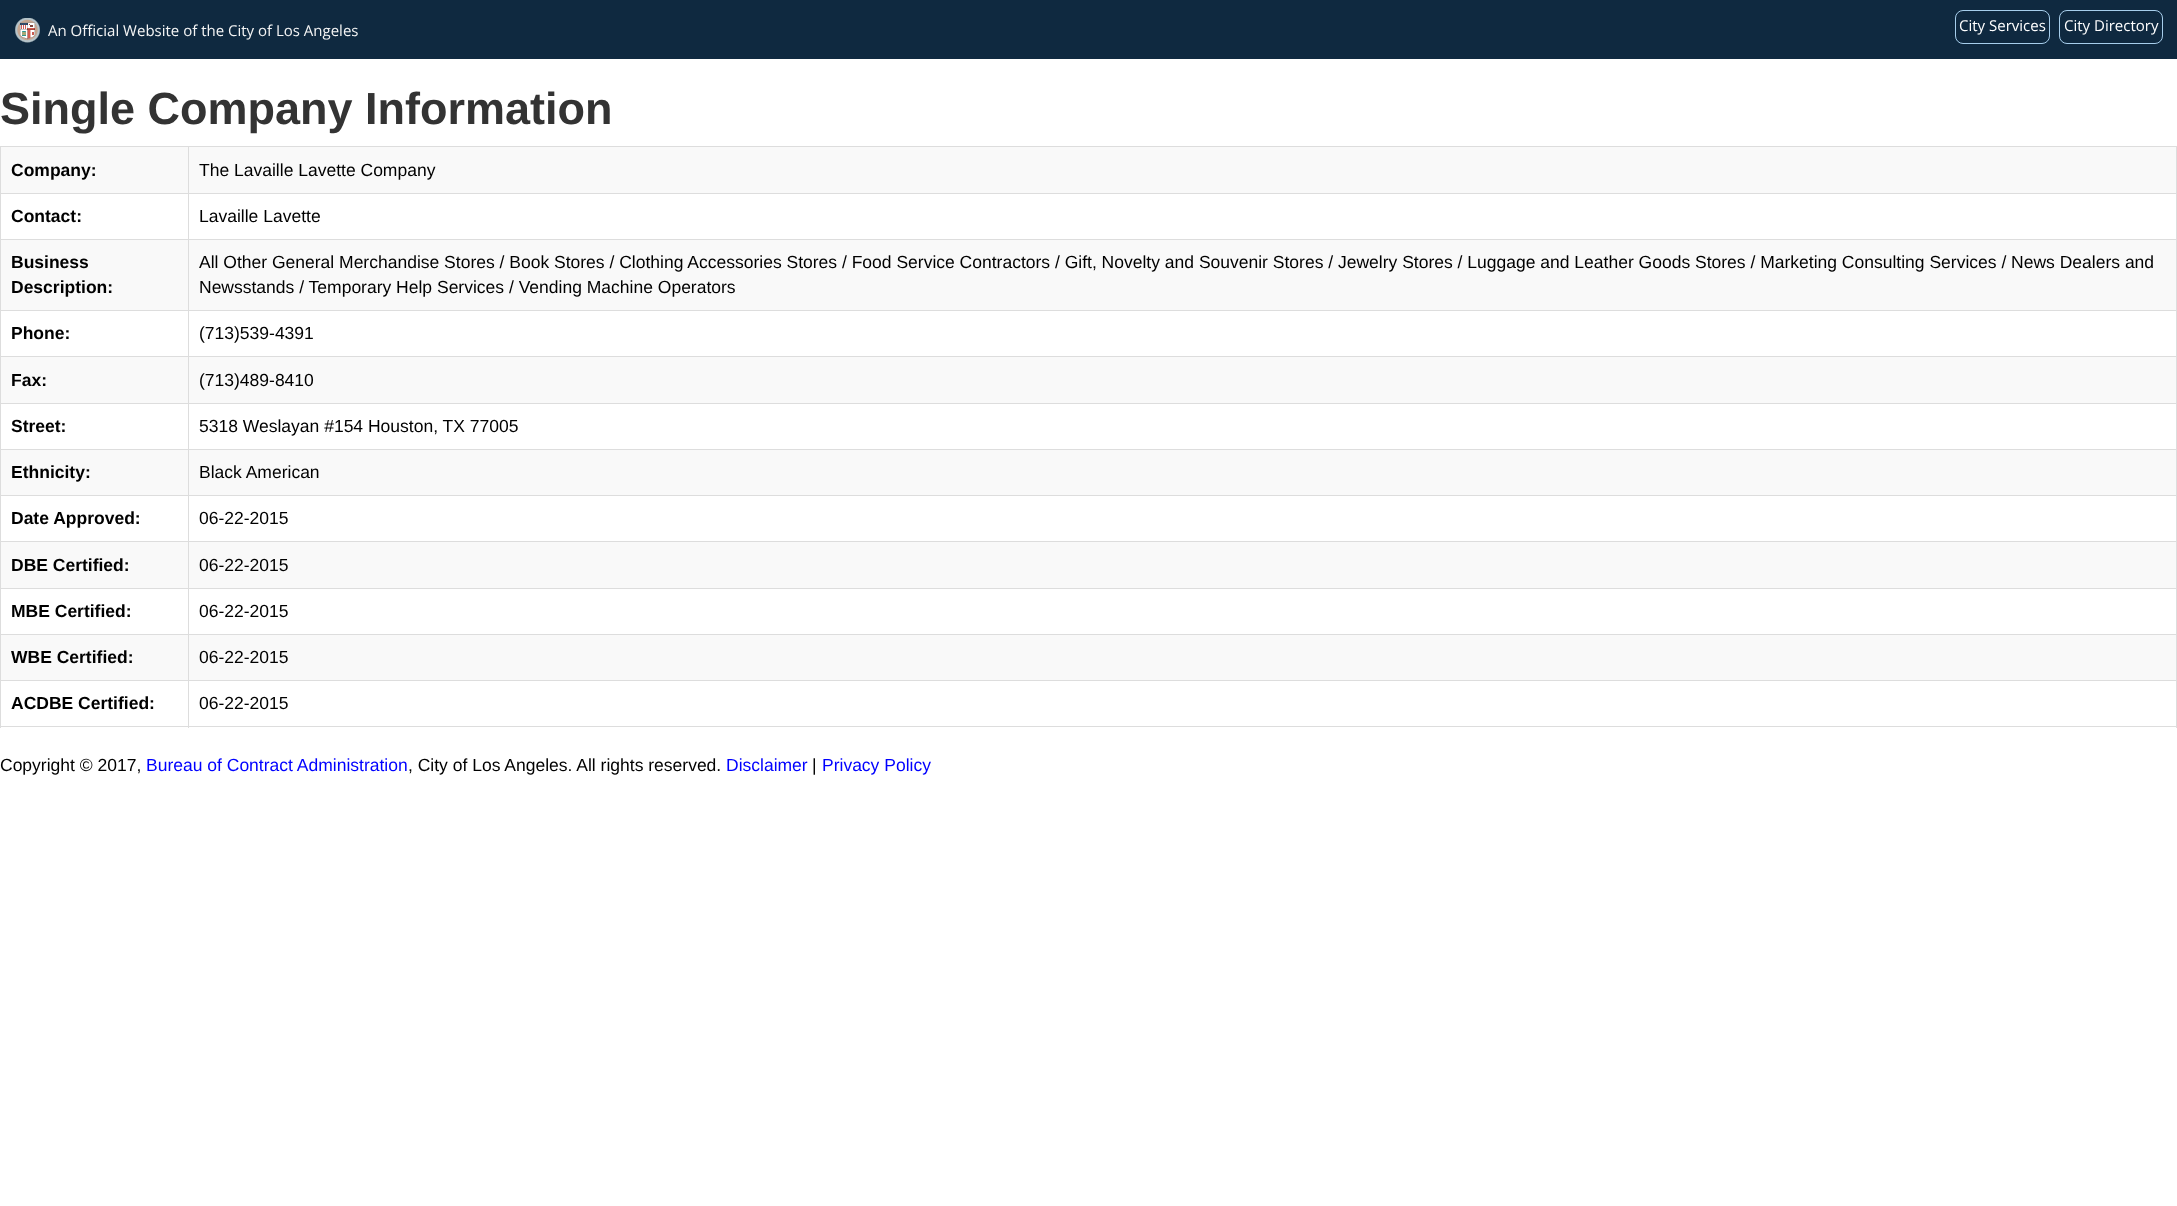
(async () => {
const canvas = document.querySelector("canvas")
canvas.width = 2177
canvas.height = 1206
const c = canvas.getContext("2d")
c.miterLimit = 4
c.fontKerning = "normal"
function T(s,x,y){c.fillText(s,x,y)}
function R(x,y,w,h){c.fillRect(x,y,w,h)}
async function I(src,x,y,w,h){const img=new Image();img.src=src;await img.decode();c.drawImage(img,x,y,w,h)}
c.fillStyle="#fff"
R(0,0,2177,1206)
c.fillStyle="#0f2940"
R(0,0,2177,59)
await I("1.png",15,18,25,25)
c.font="15px Open Sans"
c.fillStyle="#f5f5f5"
T("An Official Website of the City of Los Angeles",48,36)
c.beginPath()
c.roundRect(1955.5,10.5,94,33,7.5)
c.strokeStyle="#a7ceec"
c.stroke()
c.fillStyle="#fff"
T("City Services",1959,31)
c.beginPath()
c.roundRect(2059.5,10.5,103,33,7.5)
c.stroke()
T("City Directory",2064,31)
c.font="bold 45px Liberation Sans"
c.fillStyle="#333"
T("Single Company Information",0,124)
c.fillStyle="#ddd"
R(0,146,2177,1)
R(2176,146,1,582)
R(0,726,2177,1)
R(0,146,1,582)
c.fillStyle="#f9f9f9"
R(1,147,2175,46)
c.font="bold 17.5px Liberation Sans"
c.fillStyle="#000"
T("Company:",11,176)
c.fillStyle="#ddd"
R(188,193,1989,1)
R(188,239,1989,1)
c.fillStyle="#f9f9f9"
R(1,240,2175,70)
c.fillStyle="#ddd"
R(188,310,1989,1)
c.fillStyle="#f9f9f9"
R(1,357,2175,46)
c.fillStyle="#ddd"
R(188,356,1989,1)
R(188,403,1989,1)
R(188,449,1989,1)
c.fillStyle="#f9f9f9"
R(1,450,2175,45)
c.fillStyle="#ddd"
R(188,495,1989,1)
c.fillStyle="#f9f9f9"
R(1,542,2175,46)
c.fillStyle="#ddd"
R(188,541,1989,1)
R(188,588,1989,1)
R(188,634,1989,1)
c.fillStyle="#f9f9f9"
R(1,635,2175,45)
c.fillStyle="#ddd"
R(188,680,1989,1)
R(188,680,1,48)
R(0,680,189,1)
R(188,634,1,47)
R(0,634,189,1)
R(188,588,1,47)
R(0,588,189,1)
R(188,541,1,48)
R(0,541,189,1)
R(188,495,1,48)
R(0,495,189,1)
R(188,449,1,47)
R(0,449,189,1)
R(188,403,1,47)
R(0,403,189,1)
R(188,356,1,48)
R(0,356,189,1)
R(188,310,1,48)
R(0,310,189,1)
R(188,239,1,72)
R(0,239,189,1)
R(188,193,1,47)
R(0,193,189,1)
R(188,146,1,48)
c.font="17.5px Liberation Sans"
c.fillStyle="#000"
T("The Lavaille Lavette Company",199,176)
c.font="bold 17.5px Liberation Sans"
T("Contact:",11,222)
c.font="17.5px Liberation Sans"
T("Lavaille Lavette",199,222)
c.font="bold 17.5px Liberation Sans"
T("Business",11,268)
T("Description:",11,293)
c.font="17.5px Liberation Sans"
T("All Other General Merchandise Stores / Book Stores / Clothing Accessories Stores / Food Service Contractors / Gift, Novelty and Souvenir Stores / Jewelry Stores / Luggage and Leather Goods Stores / Marketing Consulting Services / News Dealers and",199,268)
T("Newsstands / Temporary Help Services / Vending Machine Operators",199,293)
c.font="bold 17.5px Liberation Sans"
T("Phone:",11,339)
c.font="17.5px Liberation Sans"
T("(713)539-4391",199,339)
c.font="bold 17.5px Liberation Sans"
T("Fax:",11,386)
c.font="17.5px Liberation Sans"
T("(713)489-8410",199,386)
c.font="bold 17.5px Liberation Sans"
T("Street:",11,432)
c.font="17.5px Liberation Sans"
T("5318 Weslayan #154 Houston, TX 77005",199,432)
c.font="bold 17.5px Liberation Sans"
T("Ethnicity:",11,478)
c.font="17.5px Liberation Sans"
T("Black American",199,478)
c.font="bold 17.5px Liberation Sans"
T("Date Approved:",11,524)
c.font="17.5px Liberation Sans"
T("06-22-2015",199,524)
c.font="bold 17.5px Liberation Sans"
T("DBE Certified:",11,571)
c.font="17.5px Liberation Sans"
T("06-22-2015",199,571)
c.font="bold 17.5px Liberation Sans"
T("MBE Certified:",11,617)
c.font="17.5px Liberation Sans"
T("06-22-2015",199,617)
c.font="bold 17.5px Liberation Sans"
T("WBE Certified:",11,663)
c.font="17.5px Liberation Sans"
T("06-22-2015",199,663)
c.font="bold 17.5px Liberation Sans"
T("ACDBE Certified:",11,709)
c.font="17.5px Liberation Sans"
T("06-22-2015",199,709)
T("Copyright © 2017,",0,771)
c.fillStyle="#00f"
T("Bureau of Contract Administration",146,771)
c.fillStyle="#000"
T(", City of Los Angeles. All rights reserved.",408,771)
c.fillStyle="#00f"
T("Disclaimer",726,771)
c.fillStyle="#000"
T("|",812,771)
c.fillStyle="#00f"
T("Privacy Policy",822,771)
})()
